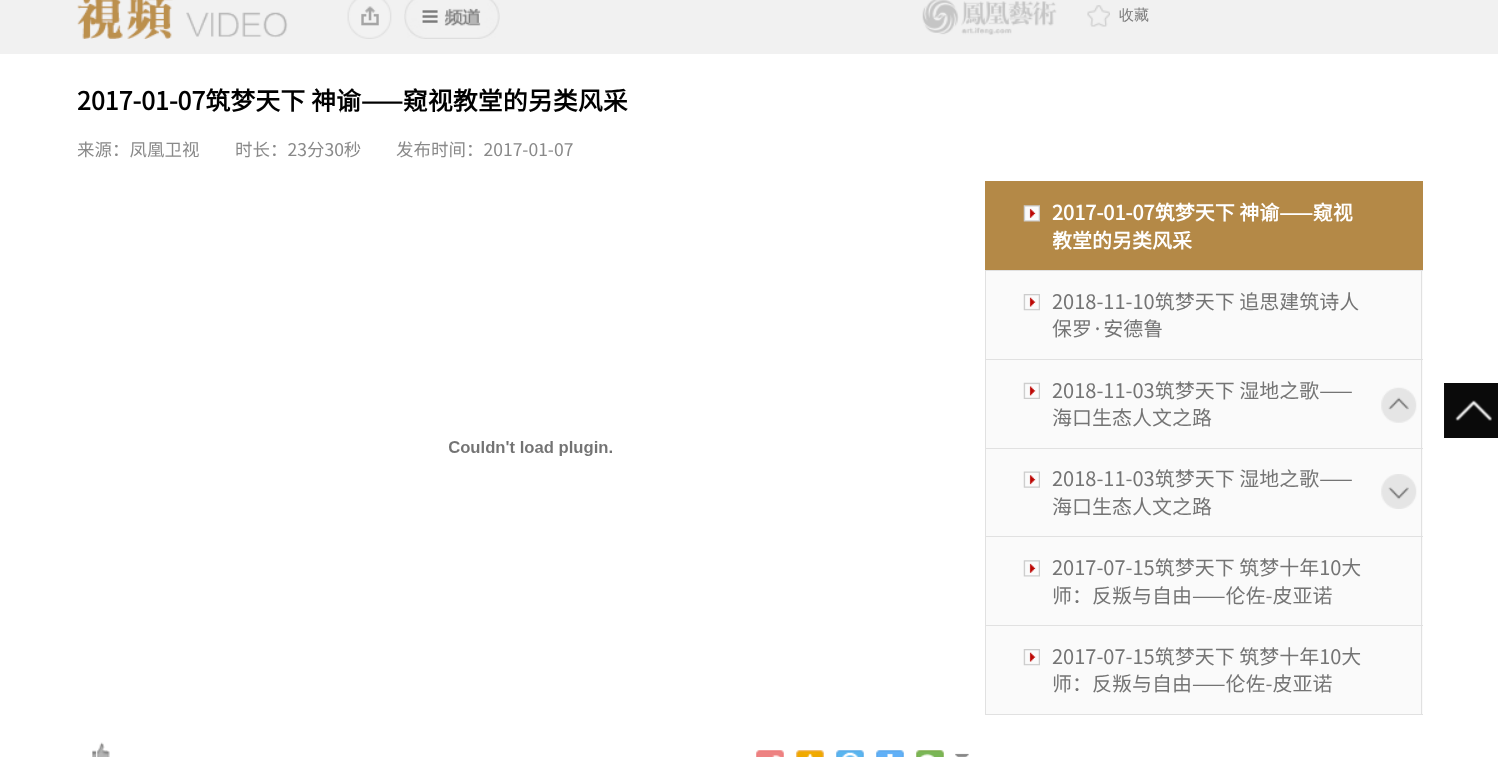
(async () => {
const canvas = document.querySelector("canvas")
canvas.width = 1498
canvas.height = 757
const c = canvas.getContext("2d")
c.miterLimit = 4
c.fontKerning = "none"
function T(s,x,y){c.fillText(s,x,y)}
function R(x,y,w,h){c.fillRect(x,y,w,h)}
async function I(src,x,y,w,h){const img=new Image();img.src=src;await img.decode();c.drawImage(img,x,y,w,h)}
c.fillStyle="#fff"
R(0,0,1498,757)
c.fillStyle="#f1f1f1"
R(0,0,1498,54)
await I("1.png",77,0,211,39)
await I("2.png",347,0,45,39)
await I("3.png",404,0,96,39)
await I("4.png",922,0,135,35)
await I("5.png",1087,5,23,22)
c.font="500 15px WenQuanYi Zen Hei"
c.fillStyle="#7b7b7b"
T("收藏",1119,20)
c.font="bold 25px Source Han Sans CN"
c.fillStyle="#000"
T("2017-01-07筑梦天下 神谕——窥视教堂的另类风采",77,110)
c.font="17.5px Source Han Sans CN"
c.fillStyle="#898989"
T("来源：凤凰卫视",77,156)
T("时长：23分30秒",235,156)
T("发布时间：2017-01-07",396,156)
c.fillStyle="#b48947"
R(985,181,438,89)
await I("6.png",1023,205,17,17)
c.font="bold 20px Source Han Sans CN"
c.fillStyle="#fff"
T("2017-01-07筑梦天下 神谕——窥视",1052,220)
c.save()
c.beginPath()
c.rect(1053,199,320,55)
c.clip()
T("教堂的另类风采",1052,248)
c.restore()
c.fillStyle="#fafafa"
R(986,271,437,88)
c.fillStyle="#e1e1e1"
R(985,270,438,1)
R(1421,270,1,89)
R(985,270,1,89)
await I("7.png",1023,294,17,17)
c.font="20px Source Han Sans CN"
c.fillStyle="#747474"
T("2018-11-10筑梦天下 追思建筑诗人",1052,309)
T("保罗·安德鲁",1052,336)
c.fillStyle="#fafafa"
R(986,360,437,88)
c.fillStyle="#e1e1e1"
R(985,359,438,1)
R(1421,359,1,89)
R(985,359,1,89)
await I("8.png",1023,382,17,17)
c.fillStyle="#747474"
T("2018-11-03筑梦天下 湿地之歌——",1052,398)
T("海口生态人文之路",1052,425)
c.fillStyle="#fafafa"
R(986,449,437,87)
c.fillStyle="#e1e1e1"
R(985,448,438,1)
R(1421,448,1,88)
R(985,448,1,88)
await I("9.png",1023,471,17,17)
c.fillStyle="#747474"
T("2018-11-03筑梦天下 湿地之歌——",1052,486)
T("海口生态人文之路",1052,514)
c.fillStyle="#fafafa"
R(986,537,437,88)
c.fillStyle="#e1e1e1"
R(985,536,438,1)
R(1421,536,1,89)
R(985,536,1,89)
await I("10.png",1023,560,17,17)
c.fillStyle="#747474"
T("2017-07-15筑梦天下 筑梦十年10大",1052,575)
T("师：反叛与自由——伦佐-皮亚诺",1052,603)
c.fillStyle="#fafafa"
R(986,626,437,88)
c.fillStyle="#e1e1e1"
R(985,625,438,1)
R(1421,625,1,89)
R(985,625,1,89)
await I("7.png",1023,649,17,17)
c.fillStyle="#747474"
T("2017-07-15筑梦天下 筑梦十年10大",1052,664)
T("师：反叛与自由——伦佐-皮亚诺",1052,691)
c.fillStyle="#e1e1e1"
R(985,714,438,1)
await I("11.png",1381,387,36,36)
await I("12.png",449,441,163,15)
await I("13.png",1381,474,36,35)
c.fillStyle="#333"
R(1444,383,54,55)
await I("14.png",1444,383,54,55)
await I("15.png",92,742,18,15)
await I("16.png",756,750,28,7)
await I("17.png",796,750,28,7)
await I("18.png",836,750,28,7)
await I("19.png",876,750,28,7)
await I("20.png",916,750,28,7)
await I("21.png",955,753,14,4)
})()
